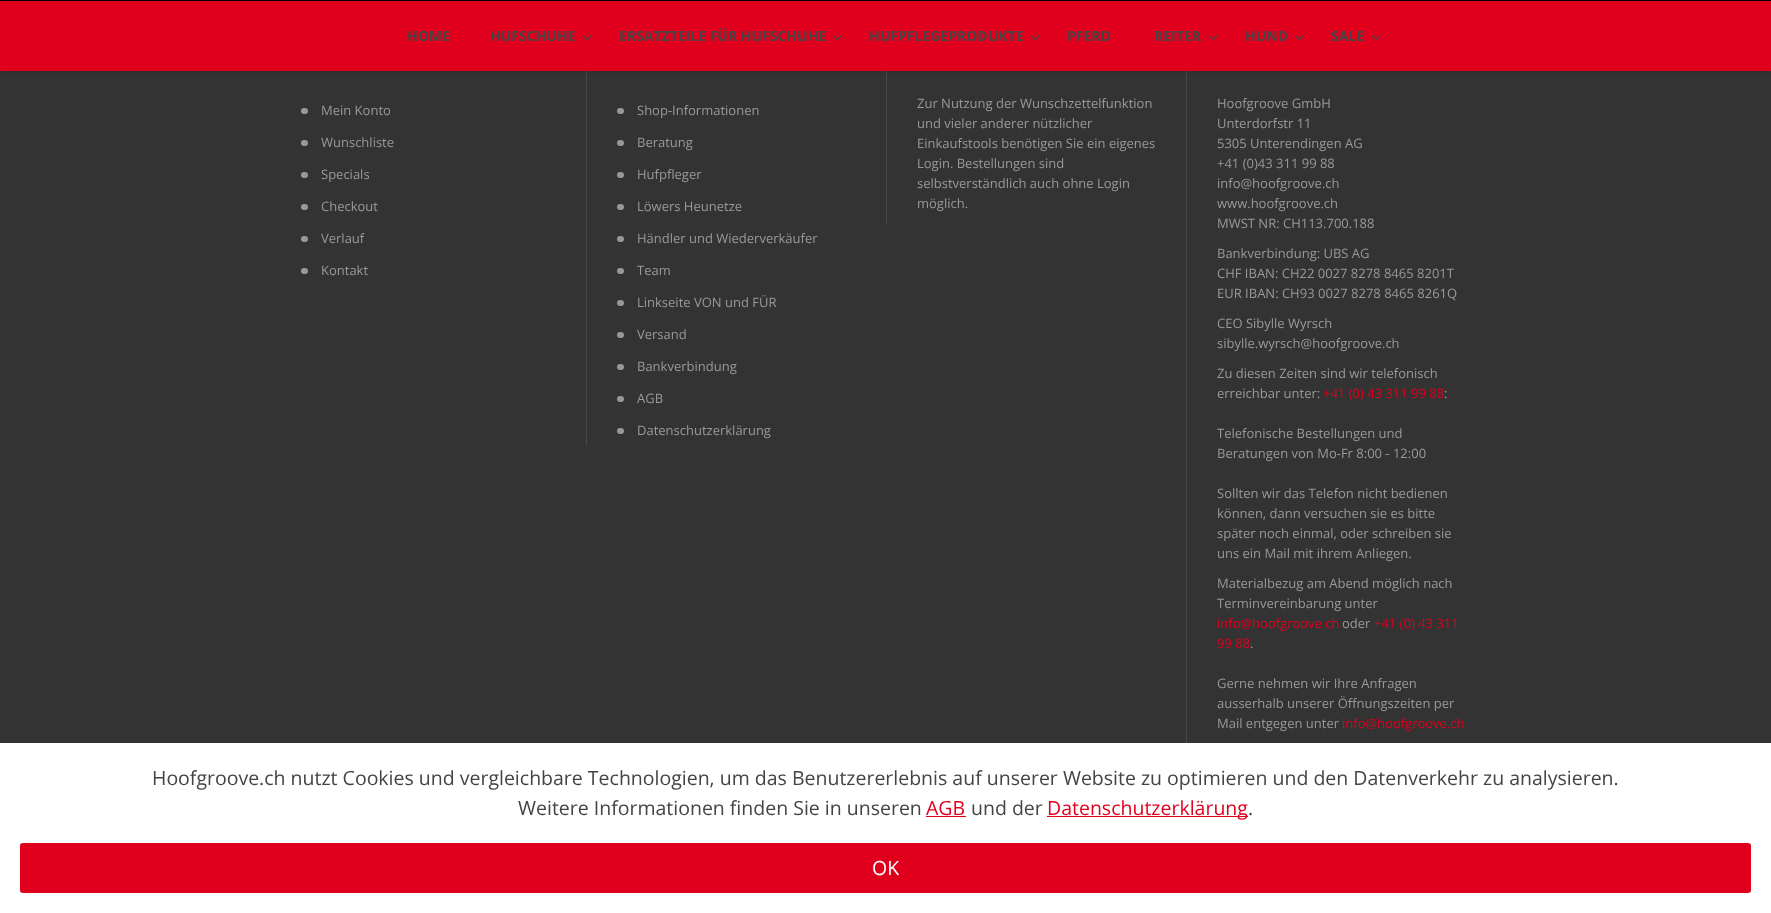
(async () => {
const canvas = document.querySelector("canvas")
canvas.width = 1771
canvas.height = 913
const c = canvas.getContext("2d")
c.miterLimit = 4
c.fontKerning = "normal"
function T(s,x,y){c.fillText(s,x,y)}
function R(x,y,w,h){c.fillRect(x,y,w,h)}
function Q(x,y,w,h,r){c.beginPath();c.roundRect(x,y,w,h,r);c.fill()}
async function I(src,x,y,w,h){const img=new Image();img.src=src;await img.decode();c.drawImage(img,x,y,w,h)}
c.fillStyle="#333"
R(0,0,1771,913)
c.fillStyle="#484848"
R(586,71,1,375)
R(886,71,1,153)
R(1186,71,1,672)
c.fillStyle="#00000033"
c.filter="blur(2.5px)"
c.beginPath()
c.rect(0,0,1771,71)
c.fill()
c.filter="none"
c.fillStyle="#e0001d"
R(0,1,1771,70)
c.fillStyle="#000"
R(0,0,1771,1)
c.font="bold 14px Open Sans"
c.fillStyle="#444"
T("HOME",407,41)
T("HUFSCHUHE",490,41)
await I("1.png",582,35,10,6)
T("ERSATZTEILE FÜR HUFSCHUHE",619,41)
await I("1.png",832,35,10,6)
T("HUFPFLEGEPRODUKTE",869,41)
await I("1.png",1030,35,10,6)
T("PFERD",1067,41)
T("REITER",1154,41)
await I("1.png",1208,35,10,6)
T("HUND",1245,41)
await I("1.png",1294,35,10,6)
T("SALE",1331,41)
await I("1.png",1371,35,10,6)
c.fillStyle="#999"
Q(301,108,7,6,3)
c.font="13px Open Sans"
T("Mein Konto",321,115)
Q(301,140,7,6,3)
T("Wunschliste",321,147)
Q(301,172,7,6,3)
T("Specials",321,179)
Q(301,204,7,6,3)
T("Checkout",321,211)
Q(301,236,7,6,3)
T("Verlauf",321,243)
Q(301,268,7,6,3)
T("Kontakt",321,275)
Q(617,108,7,6,3)
T("Shop-Informationen",637,115)
Q(617,140,7,6,3)
T("Beratung",637,147)
Q(617,172,7,6,3)
T("Hufpfleger",637,179)
Q(617,204,7,6,3)
T("Löwers Heunetze",637,211)
Q(617,236,7,6,3)
T("Händler und Wiederverkäufer",637,243)
Q(617,268,7,6,3)
T("Team",637,275)
Q(617,300,7,6,3)
T("Linkseite VON und FÜR",637,307)
Q(617,332,7,6,3)
T("Versand",637,339)
Q(617,364,7,6,3)
T("Bankverbindung",637,371)
Q(617,396,7,6,3)
T("AGB",637,403)
Q(617,428,7,6,3)
T("Datenschutzerklärung",637,435)
T("Zur Nutzung der Wunschzettelfunktion",917,108)
T("und vieler anderer nützlicher",917,128)
T("Einkaufstools benötigen Sie ein eigenes",917,148)
T("Login. Bestellungen sind",917,168)
T("selbstverständlich auch ohne Login",917,188)
T("möglich.",917,208)
T("Hoofgroove GmbH",1217,108)
T("Unterdorfstr 11",1217,128)
T("5305 Unterendingen AG",1217,148)
T("+41 (0)43 311 99 88",1217,168)
T("info@hoofgroove.ch",1217,188)
T("www.hoofgroove.ch",1217,208)
T("MWST NR: CH113.700.188",1217,228)
T("Bankverbindung: UBS AG",1217,258)
T("CHF IBAN: CH22 0027 8278 8465 8201T",1217,278)
T("EUR IBAN: CH93 0027 8278 8465 8261Q",1217,298)
T("CEO Sibylle Wyrsch",1217,328)
T("sibylle.wyrsch@hoofgroove.ch",1217,348)
T("Zu diesen Zeiten sind wir telefonisch",1217,378)
T("erreichbar unter:",1217,398)
c.fillStyle="#e0001d"
T("+41 (0) 43 311 99 88",1323,398)
c.fillStyle="#999"
T(":",1444,398)
T("Telefonische Bestellungen und",1217,438)
T("Beratungen von Mo-Fr 8:00 - 12:00",1217,458)
T("Sollten wir das Telefon nicht bedienen",1217,498)
T("können, dann versuchen sie es bitte",1217,518)
T("später noch einmal, oder schreiben sie",1217,538)
T("uns ein Mail mit ihrem Anliegen.",1217,558)
T("Materialbezug am Abend möglich nach",1217,588)
T("Terminvereinbarung unter",1217,608)
c.fillStyle="#e0001d"
T("info@hoofgroove.ch",1217,628)
c.fillStyle="#999"
T("oder",1342,628)
c.fillStyle="#e0001d"
T("+41 (0) 43 311",1374,628)
T("99 88",1217,648)
c.fillStyle="#999"
T(".",1250,648)
T("Gerne nehmen wir Ihre Anfragen",1217,688)
T("ausserhalb unserer Öffnungszeiten per",1217,708)
T("Mail entgegen unter",1217,728)
c.fillStyle="#e0001d"
T("info@hoofgroove.ch",1342,728)
c.fillStyle="#fff"
R(0,743,1771,170)
c.font="19.5px Open Sans"
c.fillStyle="#444"
T("Hoofgroove.ch nutzt Cookies und vergleichbare Technologien, um das Benutzererlebnis auf unserer Website zu optimieren und den Datenverkehr zu analysieren.",152,785)
T("Weitere Informationen finden Sie in unseren",518,815)
c.fillStyle="#e0001d"
T("AGB",926,815)
R(926,816,40,1)
c.fillStyle="#444"
T("und der",971,815)
c.fillStyle="#e0001d"
R(1047,816,201,1)
T("Datenschutzerklärung",1047,815)
c.fillStyle="#444"
T(".",1248,815)
c.fillStyle="#e0001d"
Q(20,843,1731,50,3)
c.fillStyle="#fff"
T("OK",872,875)
})()
